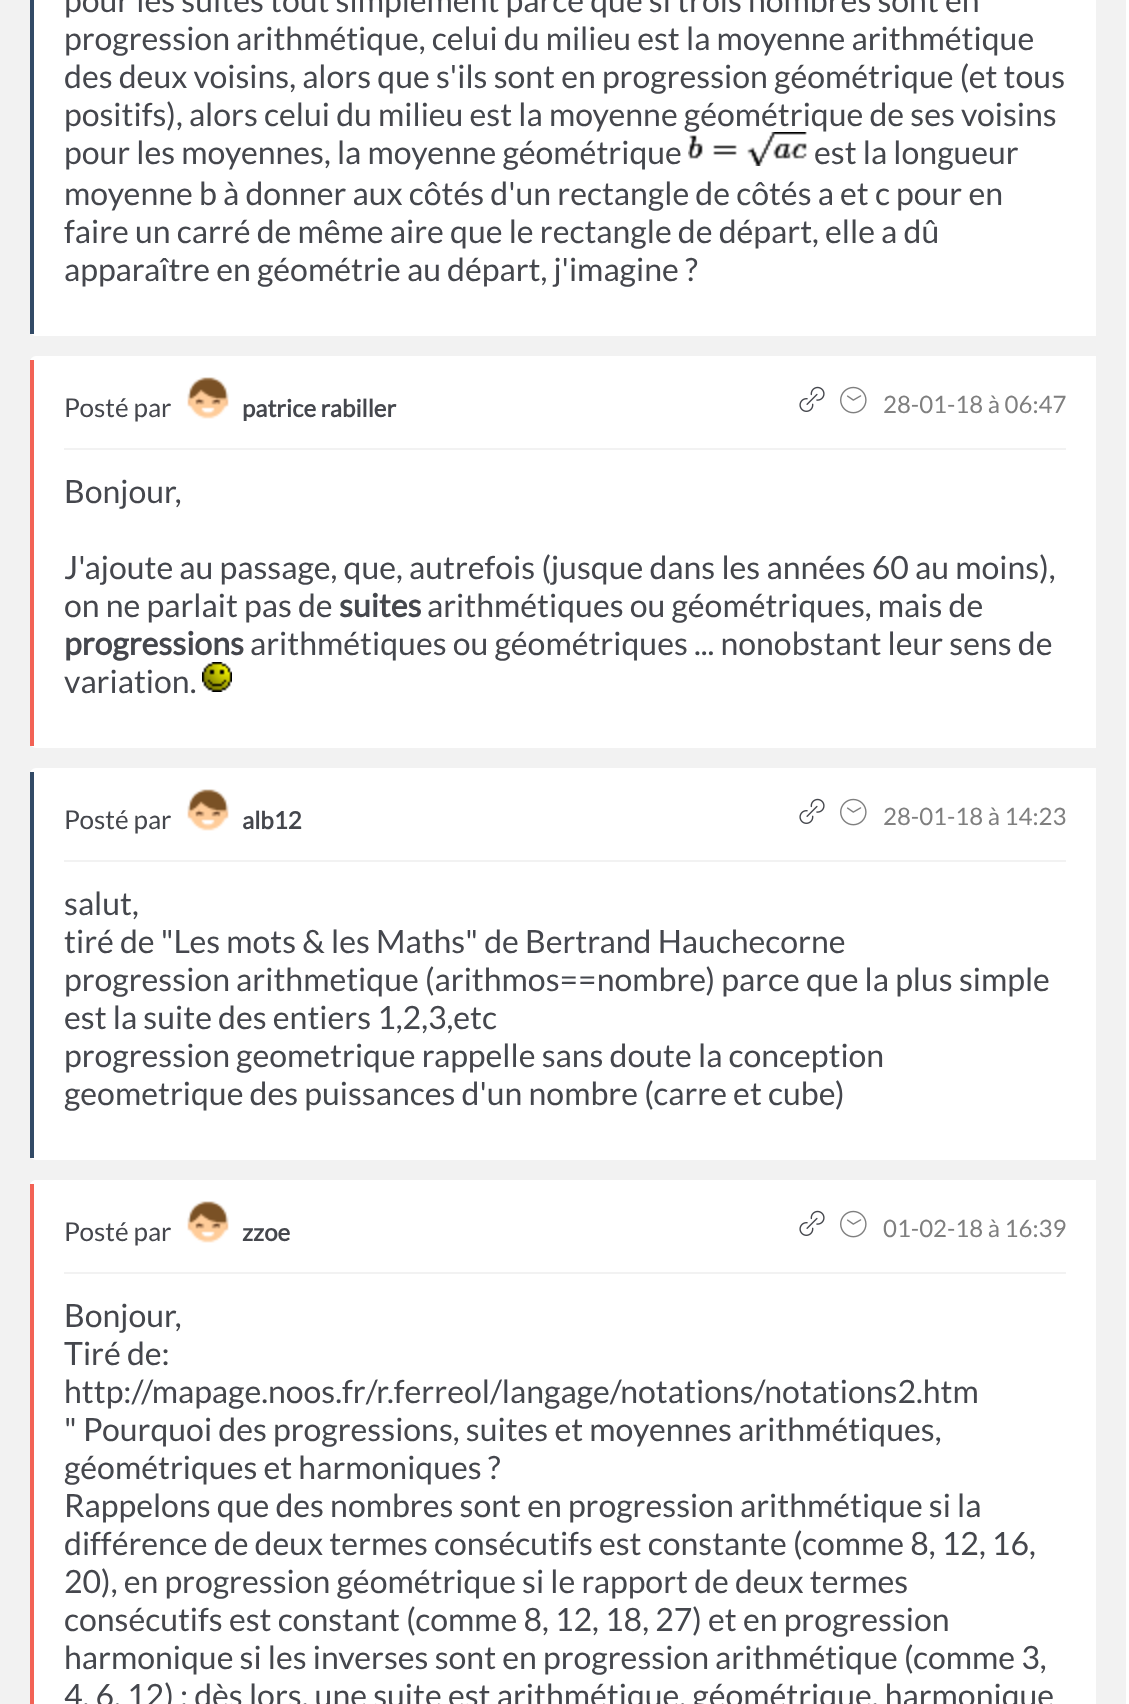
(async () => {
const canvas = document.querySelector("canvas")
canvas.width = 1129
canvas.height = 1704
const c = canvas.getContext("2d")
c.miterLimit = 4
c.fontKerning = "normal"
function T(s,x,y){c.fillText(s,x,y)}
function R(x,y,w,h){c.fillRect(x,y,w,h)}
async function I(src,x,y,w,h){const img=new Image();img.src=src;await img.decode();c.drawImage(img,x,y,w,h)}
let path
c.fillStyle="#fff"
R(0,0,1129,1704)
c.fillStyle="#f2f2f2"
R(0,0,1126,1704)
c.fillStyle="#fff"
path = new Path2D("M36-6h1060v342h-1060c-3.5 0-6-2.5-6-6v-330c0-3.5 2.5-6 6-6z")
c.fill(path)
c.fillStyle="#324a66"
R(30,0,4,334)
c.font="32px Lato"
c.fillStyle="#45474d"
T("pour les suites tout simplement parce que si trois nombres sont en",64,12)
T("progression arithmétique, celui du milieu est la moyenne arithmétique",64,50)
T("des deux voisins, alors que s'ils sont en progression géométrique (et tous",64,88)
T("positifs), alors celui du milieu est la moyenne géométrique de ses voisins",64,126)
T("pour les moyennes, la moyenne géométrique",64,164)
await I("1.png",688,132,119,34)
T("est la longueur",814,164)
T("moyenne b à donner aux côtés d'un rectangle de côtés a et c pour en",64,205)
T("faire un carré de même aire que le rectangle de départ, elle a dû",64,243)
T("apparaître en géométrie au départ, j'imagine ?",64,281)
c.fillStyle="#fff"
c.beginPath()
c.roundRect(30,356,1066,392,[6,0,0,6])
c.fill()
c.fillStyle="#f26255"
R(30,360,4,386)
c.fillStyle="#f2f2f2"
R(64,448,1002,2)
c.font="26px Lato"
c.fillStyle="#45474d"
T("Posté par",64,417)
await I("2.png",187,377,42,42)
c.font="bold 24px Lato"
T("patrice rabiller",242,417)
await I("3.png",799,386,26,26)
await I("4.png",840,386,27,28)
c.font="24px Lato"
c.fillStyle="#7f7f7f"
T("28-01-18 à 06:47",883,413)
c.font="32px Lato"
c.fillStyle="#45474d"
T("Bonjour,",64,503)
T("J'ajoute au passage, que, autrefois (jusque dans les années 60 au moins),",64,579)
T("on ne parlait pas de",64,617)
c.font="bold 32px Lato"
T("suites",339,617)
c.font="32px Lato"
T("arithmétiques ou géométriques, mais de",427,617)
c.font="bold 32px Lato"
T("progressions",64,655)
c.font="32px Lato"
T("arithmétiques ou géométriques ... nonobstant leur sens de",250,655)
T("variation.",64,693)
await I("5.png",202,662,30,30)
c.fillStyle="#fff"
c.beginPath()
c.roundRect(30,768,1066,392,[6,0,0,6])
c.fill()
c.fillStyle="#324a66"
R(30,772,4,386)
c.fillStyle="#f2f2f2"
R(64,860,1002,2)
c.font="26px Lato"
c.fillStyle="#45474d"
T("Posté par",64,829)
await I("2.png",187,789,42,42)
c.font="bold 24px Lato"
T("alb12",242,829)
await I("3.png",799,798,26,26)
await I("4.png",840,798,27,28)
c.font="24px Lato"
c.fillStyle="#7f7f7f"
T("28-01-18 à 14:23",883,825)
c.font="32px Lato"
c.fillStyle="#45474d"
T("salut,",64,915)
T("tiré de \"Les mots & les Maths\" de Bertrand Hauchecorne",64,953)
T("progression arithmetique (arithmos==nombre) parce que la plus simple",64,991)
T("est la suite des entiers 1,2,3,etc",64,1029)
T("progression geometrique rappelle sans doute la conception",64,1067)
T("geometrique des puissances d'un nombre (carre et cube)",64,1105)
c.fillStyle="#fff"
path = new Path2D("M36 1180h1060v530h-1060c-3.5 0-6-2.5-6-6v-518c0-3.5 2.5-6 6-6z")
c.fill(path)
c.fillStyle="#f26255"
R(30,1184,4,520)
c.fillStyle="#f2f2f2"
R(64,1272,1002,2)
c.font="26px Lato"
c.fillStyle="#45474d"
T("Posté par",64,1241)
await I("2.png",187,1201,42,42)
c.font="bold 24px Lato"
T("zzoe",242,1241)
await I("3.png",799,1210,26,26)
await I("4.png",840,1210,27,28)
c.font="24px Lato"
c.fillStyle="#7f7f7f"
T("01-02-18 à 16:39",883,1237)
c.font="32px Lato"
c.fillStyle="#45474d"
T("Bonjour,",64,1327)
T("Tiré de:",64,1365)
T("http://mapage.noos.fr/r.ferreol/langage/notations/notations2.htm",64,1403)
T("\" Pourquoi des progressions, suites et moyennes arithmétiques,",64,1441)
T("géométriques et harmoniques ?",64,1479)
T("Rappelons que des nombres sont en progression arithmétique si la",64,1517)
T("différence de deux termes consécutifs est constante (comme 8, 12, 16,",64,1555)
T("20), en progression géométrique si le rapport de deux termes",64,1593)
T("consécutifs est constant (comme 8, 12, 18, 27) et en progression",64,1631)
T("harmonique si les inverses sont en progression arithmétique (comme 3,",64,1669)
T("4, 6, 12) ; dès lors, une suite est arithmétique, géométrique, harmonique",64,1707)
})()
